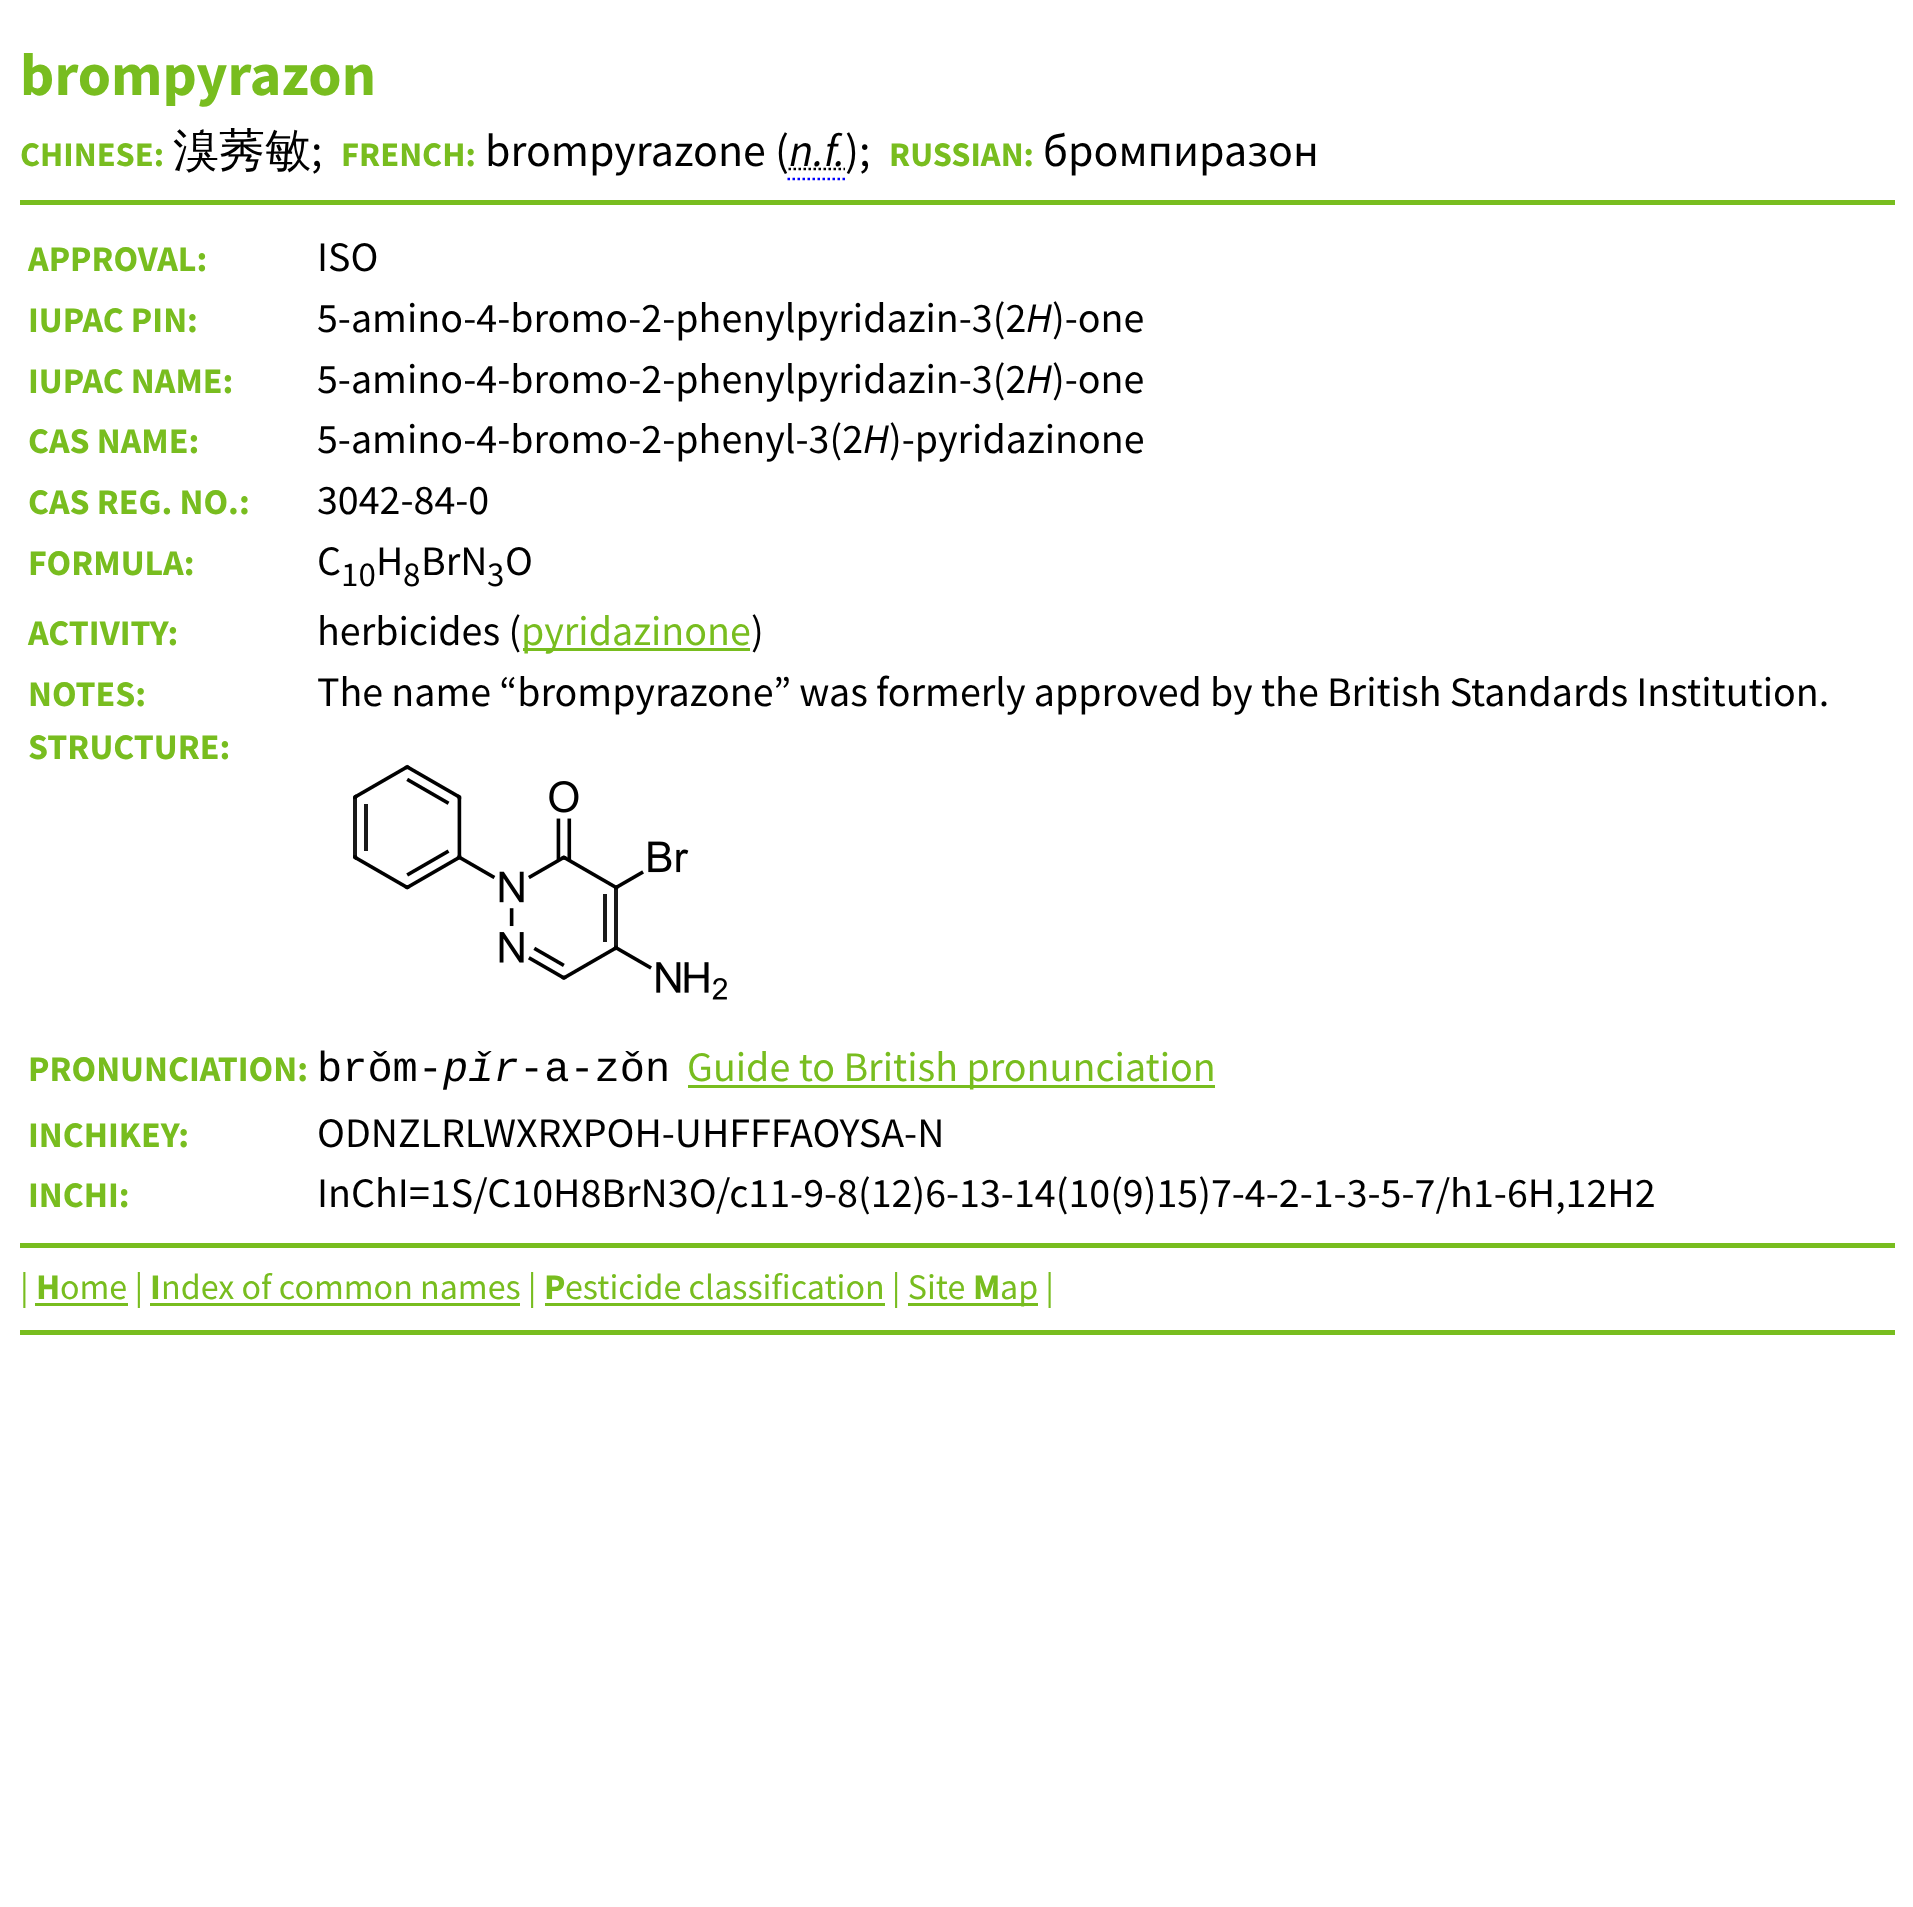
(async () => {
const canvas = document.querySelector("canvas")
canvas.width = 1913
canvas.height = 1907
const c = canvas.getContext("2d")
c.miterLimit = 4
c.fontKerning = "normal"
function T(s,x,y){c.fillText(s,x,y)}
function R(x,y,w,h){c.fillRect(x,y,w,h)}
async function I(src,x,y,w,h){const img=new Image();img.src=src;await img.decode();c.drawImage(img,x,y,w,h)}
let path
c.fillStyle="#fff"
R(0,0,1913,1907)
c.font="bold 60px Source Sans Pro"
c.fillStyle="#78bd1f"
T("brompyrazon",20,95)
c.font="bold 34.5px Source Sans Pro"
T("CHINESE:",20,166)
c.font="500 46px WenQuanYi Zen Hei"
c.fillStyle="#000"
T("溴莠敏",173,166)
c.font="46px Source Sans Pro"
T(";",311,166)
c.font="bold 34.5px Source Sans Pro"
c.fillStyle="#78bd1f"
T("FRENCH:",341,166)
c.font="46px Source Sans Pro"
c.fillStyle="#000"
T("brompyrazone (",485,166)
path = new Path2D("M787.5 179h57.5")
c.strokeStyle="#00f"
c.lineWidth=2.5
c.setLineDash([2.5,2.5])
c.stroke(path)
path = new Path2D("M788.5 169h56.5")
c.strokeStyle="#000"
c.stroke(path)
c.font="italic 46px Source Sans Pro"
T("n.f.",789,166)
c.font="46px Source Sans Pro"
T(");",845,166)
c.font="bold 34.5px Source Sans Pro"
c.fillStyle="#78bd1f"
T("RUSSIAN:",889,166)
c.font="46px Source Sans Pro"
c.fillStyle="#000"
T("бромпиразон",1043,166)
c.fillStyle="#78bd1f"
R(20,200,1875,5)
c.font="bold 36px Source Sans Pro"
T("APPROVAL:",28,271)
c.font="42px Source Sans Pro"
c.fillStyle="#000"
T("ISO",317,271)
c.font="bold 36px Source Sans Pro"
c.fillStyle="#78bd1f"
T("IUPAC PIN:",28,332)
c.font="42px Source Sans Pro"
c.fillStyle="#000"
T("5-amino-4-bromo-2-phenylpyridazin-3(2",317,332)
c.font="italic 42px Source Sans Pro"
T("H",1026,332)
c.font="42px Source Sans Pro"
T(")-one",1052,332)
c.font="bold 36px Source Sans Pro"
c.fillStyle="#78bd1f"
T("IUPAC NAME:",28,393)
c.font="42px Source Sans Pro"
c.fillStyle="#000"
T("5-amino-4-bromo-2-phenylpyridazin-3(2",317,393)
c.font="italic 42px Source Sans Pro"
T("H",1026,393)
c.font="42px Source Sans Pro"
T(")-one",1052,393)
c.font="bold 36px Source Sans Pro"
c.fillStyle="#78bd1f"
T("CAS NAME:",28,453)
c.font="42px Source Sans Pro"
c.fillStyle="#000"
T("5-amino-4-bromo-2-phenyl-3(2",317,453)
c.font="italic 42px Source Sans Pro"
T("H",863,453)
c.font="42px Source Sans Pro"
T(")-pyridazinone",889,453)
c.font="bold 36px Source Sans Pro"
c.fillStyle="#78bd1f"
T("CAS REG. NO.:",28,514)
c.font="42px Source Sans Pro"
c.fillStyle="#000"
T("3042-84-0",317,514)
c.font="bold 36px Source Sans Pro"
c.fillStyle="#78bd1f"
T("FORMULA:",28,575)
c.font="42px Source Sans Pro"
c.fillStyle="#000"
T("C",317,575)
c.font="35px Source Sans Pro"
T("10",341,586)
c.font="42px Source Sans Pro"
T("H",376,575)
c.font="35px Source Sans Pro"
T("8",403,586)
c.font="42px Source Sans Pro"
T("BrN",421,575)
c.font="35px Source Sans Pro"
T("3",487,586)
c.font="42px Source Sans Pro"
T("O",505,575)
c.font="bold 36px Source Sans Pro"
c.fillStyle="#78bd1f"
T("ACTIVITY:",28,645)
c.font="42px Source Sans Pro"
c.fillStyle="#000"
T("herbicides (",317,645)
c.fillStyle="#78bd1f"
R(523,648,227,3)
T("pyridazinone",521,645)
c.fillStyle="#000"
T(")",751,645)
c.font="bold 36px Source Sans Pro"
c.fillStyle="#78bd1f"
T("NOTES:",28,706)
c.wordSpacing="-0.25px"
c.font="42px Source Sans Pro"
c.fillStyle="#000"
T("The name “brompyrazone” was formerly approved by the British Standards Institution.",317,706)
c.wordSpacing="0px"
c.font="bold 36px Source Sans Pro"
c.fillStyle="#78bd1f"
T("STRUCTURE:",28,759)
await I("1.png",353,764,374,236)
T("PRONUNCIATION:",28,1081)
c.font="42px Liberation Mono"
c.fillStyle="#000"
T("brǒm-",317,1081)
c.font="italic 42px Liberation Mono"
T("pǐr",443,1081)
c.font="42px Liberation Mono"
T("-a-zǒn",519,1081)
c.fillStyle="#78bd1f"
R(688,1085,527,3)
c.font="42px Source Sans Pro"
T("Guide to British pronunciation",687,1081)
c.font="bold 36px Source Sans Pro"
T("INCHIKEY:",28,1147)
c.font="42px Source Sans Pro"
c.fillStyle="#000"
T("ODNZLRLWXRXPOH-UHFFFAOYSA-N",317,1147)
c.font="bold 36px Source Sans Pro"
c.fillStyle="#78bd1f"
T("INCHI:",28,1207)
c.font="42px Source Sans Pro"
c.fillStyle="#000"
T("InChI=1S/C10H8BrN3O/c11-9-8(12)6-13-14(10(9)15)7-4-2-1-3-5-7/h1-6H,12H2",317,1207)
c.fillStyle="#78bd1f"
R(20,1243,1875,5)
c.font="36px Source Sans Pro"
T("|",20,1299)
c.font="bold 36px Source Sans Pro"
T("H",36,1299)
R(35,1303,93,3)
c.font="36px Source Sans Pro"
T("ome |",60,1299)
c.font="bold 36px Source Sans Pro"
T("I",150,1299)
R(150,1303,370,3)
c.font="36px Source Sans Pro"
T("ndex of common names |",161,1299)
c.font="bold 36px Source Sans Pro"
T("P",544,1299)
R(545,1303,340,3)
c.font="36px Source Sans Pro"
T("esticide classification | Site",565,1299)
c.font="bold 36px Source Sans Pro"
T("M",973,1299)
R(908,1303,130,3)
c.font="36px Source Sans Pro"
T("ap |",1000,1299)
R(20,1330,1875,5)
})()
